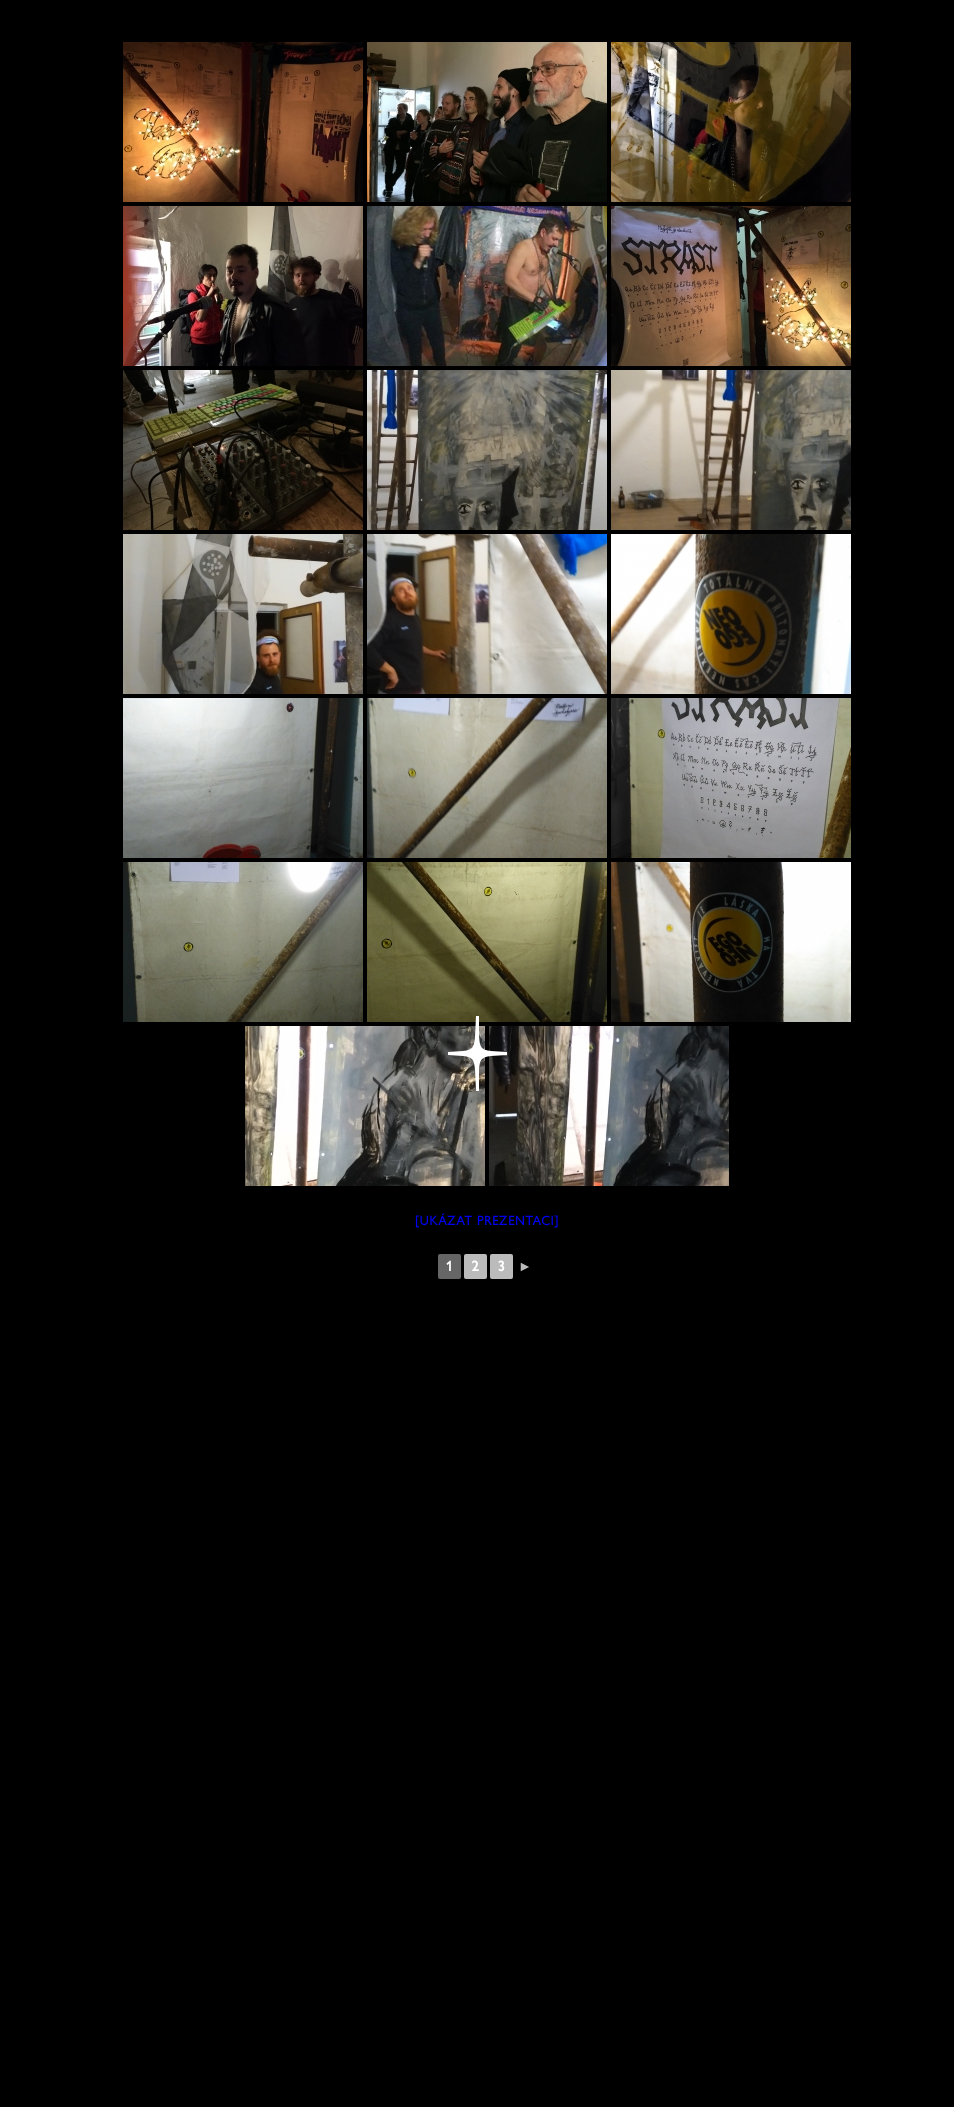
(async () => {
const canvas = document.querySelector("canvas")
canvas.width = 954
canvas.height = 2107
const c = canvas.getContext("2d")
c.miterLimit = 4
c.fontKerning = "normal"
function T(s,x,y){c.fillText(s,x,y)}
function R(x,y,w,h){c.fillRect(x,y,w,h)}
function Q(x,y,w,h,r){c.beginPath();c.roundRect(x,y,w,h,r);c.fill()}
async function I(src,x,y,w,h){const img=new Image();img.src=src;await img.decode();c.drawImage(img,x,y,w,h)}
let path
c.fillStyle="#000"
R(0,0,954,2107)
await I("17.png",367,862,240,160)
await I("19.png",245,1026,240,160)
await I("20.png",489,1026,240,160)
c.fillStyle="#fff"
path = new Path2D("M507 1052l-16-1c-10-1-11-4-12-14v-21h-3l-1 21c-1 10-2 13-12 14l-15 1v3l15 1c10 1 11 4 12 13l1 22h3v-22c1-9 2-12 12-13l16-1z")
c.fill(path)
await I("1.png",123,42,240,160)
await I("2.png",367,42,240,160)
await I("3.png",611,42,240,160)
await I("4.png",123,206,240,160)
await I("5.png",367,206,240,160)
await I("6.png",611,206,240,160)
await I("7.png",123,370,240,160)
await I("8.png",367,370,240,160)
await I("9.png",611,370,240,160)
await I("10.png",123,534,240,160)
await I("11.png",367,534,240,160)
await I("12.png",611,534,240,160)
await I("13.png",123,698,240,160)
await I("14.png",367,698,240,160)
await I("15.png",611,698,240,160)
await I("16.png",123,862,240,160)
await I("18.png",611,862,240,160)
c.letterSpacing="0.75px"
c.font="13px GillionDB"
c.fillStyle="#00e"
T("[UKÁZAT PREZENTACI]",415,1225)
c.fillStyle="#666"
Q(438,1254,23,25,2)
c.letterSpacing="0px"
c.font="bold 14px GillionDB"
c.fillStyle="#fff"
T("1",446,1271)
c.fillStyle="#bbb"
Q(464,1254,23,25,2)
c.fillStyle="#fff"
T("2",472,1271)
c.fillStyle="#bbb"
Q(490,1254,23,25,2)
c.fillStyle="#fff"
T("3",498,1271)
c.font="bold 14px Liberation Serif"
c.fillStyle="#bbb"
T("►",518,1271)
})()
